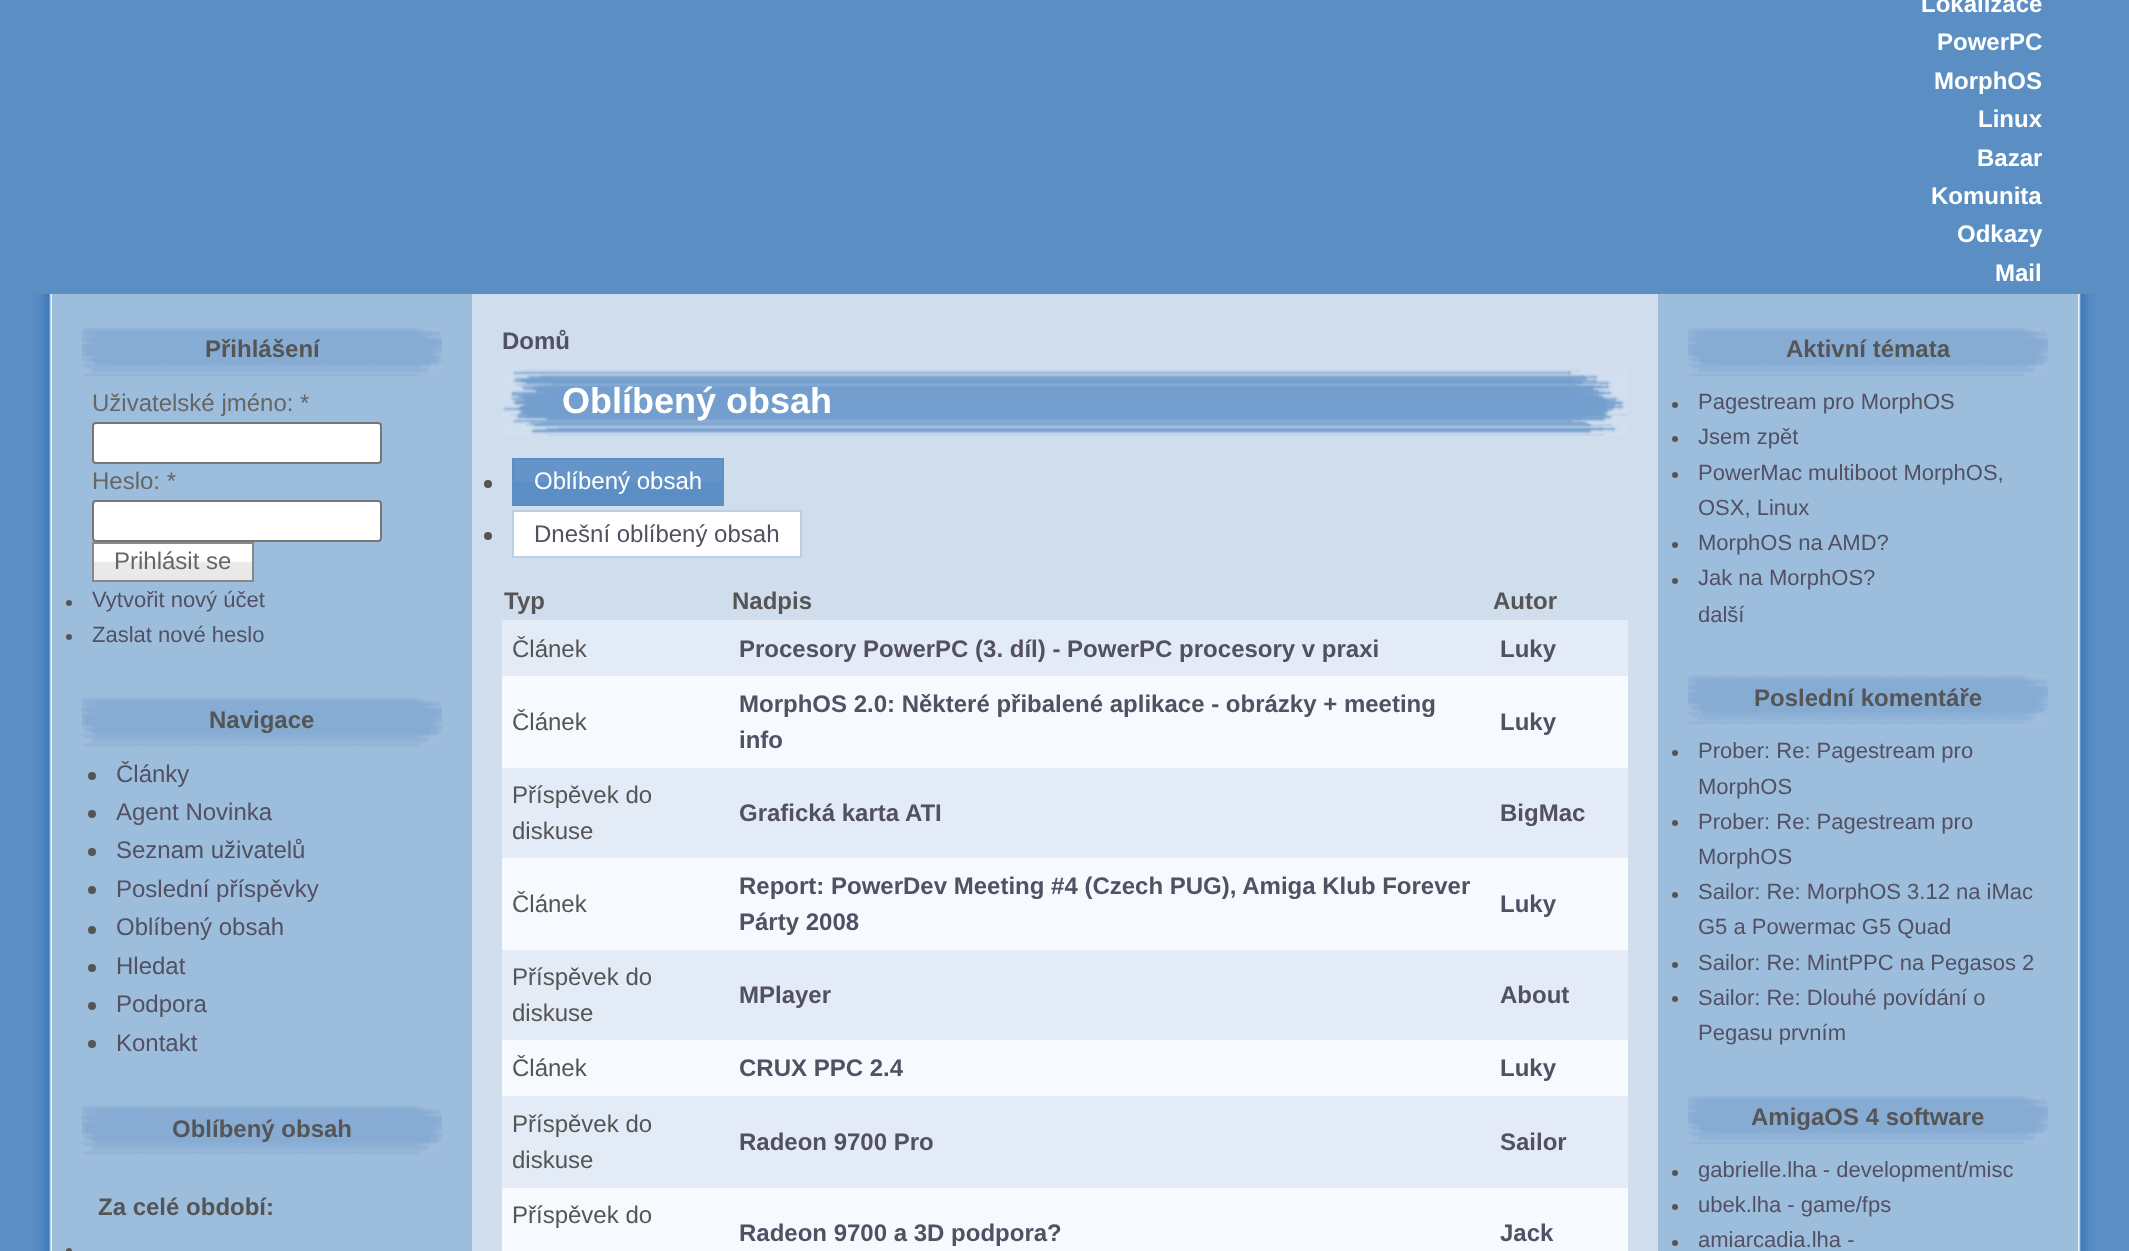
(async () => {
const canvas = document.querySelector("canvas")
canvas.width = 2129
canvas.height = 1251
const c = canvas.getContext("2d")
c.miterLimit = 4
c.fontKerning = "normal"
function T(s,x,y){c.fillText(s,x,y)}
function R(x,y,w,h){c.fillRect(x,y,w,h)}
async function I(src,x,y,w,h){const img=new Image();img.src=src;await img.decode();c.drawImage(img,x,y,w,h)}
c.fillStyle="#5b8fc3"
R(0,0,2129,1251)
c.font="bold 24px Liberation Sans"
c.fillStyle="#fff"
T("Lokalizace",1921,12)
T("PowerPC",1937,50)
T("MorphOS",1934,89)
T("Linux",1978,127)
T("Bazar",1977,166)
T("Komunita",1931,204)
T("Odkazy",1957,242)
T("Mail",1995,281)
c.fillStyle="#d0dded"
R(472,294,1186,957)
await I("1.png",32,294,20,957)
c.fillStyle="#9dbddd"
R(52,294,420,957)
await I("2.png",82,327,360,49)
c.fillStyle="#555556"
T("Přihlášení",205,357)
c.font="24px Liberation Sans"
c.fillStyle="#666"
T("Uživatelské jméno: *",92,411)
c.fillStyle="#fff"
c.beginPath()
c.roundRect(93,423,288,40,3)
c.fill()
c.strokeStyle="#767676"
c.lineWidth=2
c.stroke()
c.fillStyle="#666"
T("Heslo: *",92,489)
c.fillStyle="#fff"
c.beginPath()
c.roundRect(93,501,288,40,3)
c.fill()
c.stroke()
R(94,544,158,17)
await I("3.png",94,561,158,19)
c.strokeStyle="#888"
c.strokeRect(93,543,160,38)
c.fillStyle="#666"
T("Prihlásit se",114,569)
c.fillStyle="#555556"
c.beginPath()
c.arc(69,603,3,0,7)
c.fill()
c.font="22px Liberation Sans"
c.fillStyle="#525062"
T("Vytvořit nový účet",92,607)
c.fillStyle="#555556"
c.beginPath()
c.arc(69,637,3,0,7)
c.fill()
c.fillStyle="#525062"
T("Zaslat nové heslo",92,642)
await I("2.png",82,697,360,49)
c.font="bold 24px Liberation Sans"
c.fillStyle="#555556"
T("Navigace",209,728)
c.beginPath()
c.arc(92,776,4,0,7)
c.fill()
c.font="24px Liberation Sans"
c.fillStyle="#525062"
T("Články",116,782)
c.fillStyle="#555556"
c.beginPath()
c.arc(92,814,4,0,7)
c.fill()
c.fillStyle="#525062"
T("Agent Novinka",116,820)
c.fillStyle="#555556"
c.beginPath()
c.arc(92,852,4,0,7)
c.fill()
c.fillStyle="#525062"
T("Seznam uživatelů",116,858)
c.fillStyle="#555556"
c.beginPath()
c.arc(92,890,4,0,7)
c.fill()
c.fillStyle="#525062"
T("Poslední příspěvky",116,897)
c.fillStyle="#555556"
c.beginPath()
c.arc(92,930,4,0,7)
c.fill()
c.fillStyle="#525062"
T("Oblíbený obsah",116,935)
c.fillStyle="#555556"
c.beginPath()
c.arc(92,968,4,0,7)
c.fill()
c.fillStyle="#525062"
T("Hledat",116,974)
c.fillStyle="#555556"
c.beginPath()
c.arc(92,1006,4,0,7)
c.fill()
c.fillStyle="#525062"
T("Podpora",116,1012)
c.fillStyle="#555556"
c.beginPath()
c.arc(92,1044,4,0,7)
c.fill()
c.fillStyle="#525062"
T("Kontakt",116,1051)
await I("2.png",82,1105,360,49)
c.font="bold 24px Liberation Sans"
c.fillStyle="#555556"
T("Oblíbený obsah",172,1137)
T("Za celé období:",98,1215)
c.beginPath()
c.arc(69,1251,3,0,7)
c.fill()
c.fillStyle="#525062"
T("Domů",502,349)
await I("4.png",502,369,60,67)
await I("5.png",562,370,1006,66)
c.font="bold 36px Liberation Sans"
c.fillStyle="#fff"
T("Oblíbený obsah",562,413)
await I("6.png",1568,369,59,67)
await I("7.png",514,460,208,44)
c.fillStyle="#555556"
c.beginPath()
c.arc(488,484,4,0,7)
c.fill()
c.strokeStyle="#5b8fc3"
c.strokeRect(513,459,210,46)
c.font="24px Liberation Sans"
c.fillStyle="#fff"
T("Oblíbený obsah",534,489)
c.fillStyle="#555556"
c.beginPath()
c.arc(488,536,4,0,7)
c.fill()
c.fillStyle="#fff"
c.beginPath()
c.rect(513,511,288,46)
c.fill()
c.strokeStyle="#b8d0e6"
c.stroke()
c.fillStyle="#525062"
T("Dnešní oblíbený obsah",534,542)
c.font="bold 24px Liberation Sans"
c.fillStyle="#555556"
T("Typ",504,609)
T("Nadpis",732,609)
T("Autor",1493,609)
c.fillStyle="#e3ebf6"
R(502,620,1126,56)
c.font="24px Liberation Sans"
c.fillStyle="#555556"
T("Článek",512,657)
c.font="bold 24px Liberation Sans"
c.fillStyle="#525062"
T("Procesory PowerPC (3. díl) - PowerPC procesory v praxi",739,657)
T("Luky",1500,657)
c.fillStyle="#f6f9fe"
R(502,676,1126,92)
c.font="24px Liberation Sans"
c.fillStyle="#555556"
T("Článek",512,730)
c.font="bold 24px Liberation Sans"
c.fillStyle="#525062"
T("MorphOS 2.0: Některé přibalené aplikace - obrázky + meeting",739,712)
T("info",739,748)
T("Luky",1500,730)
c.fillStyle="#e3ebf6"
R(502,768,1126,90)
c.font="24px Liberation Sans"
c.fillStyle="#555556"
T("Příspěvek do",512,803)
T("diskuse",512,839)
c.font="bold 24px Liberation Sans"
c.fillStyle="#525062"
T("Grafická karta ATI",739,821)
T("BigMac",1500,821)
c.fillStyle="#f6f9fe"
R(502,858,1126,92)
c.font="24px Liberation Sans"
c.fillStyle="#555556"
T("Článek",512,912)
c.font="bold 24px Liberation Sans"
c.fillStyle="#525062"
T("Report: PowerDev Meeting #4 (Czech PUG), Amiga Klub Forever",739,894)
T("Párty 2008",739,930)
T("Luky",1500,912)
c.fillStyle="#e3ebf6"
R(502,950,1126,90)
c.font="24px Liberation Sans"
c.fillStyle="#555556"
T("Příspěvek do",512,985)
T("diskuse",512,1021)
c.font="bold 24px Liberation Sans"
c.fillStyle="#525062"
T("MPlayer",739,1003)
T("About",1500,1003)
c.fillStyle="#f6f9fe"
R(502,1040,1126,56)
c.font="24px Liberation Sans"
c.fillStyle="#555556"
T("Článek",512,1076)
c.font="bold 24px Liberation Sans"
c.fillStyle="#525062"
T("CRUX PPC 2.4",739,1076)
T("Luky",1500,1076)
c.fillStyle="#e3ebf6"
R(502,1096,1126,92)
c.font="24px Liberation Sans"
c.fillStyle="#555556"
T("Příspěvek do",512,1132)
T("diskuse",512,1168)
c.font="bold 24px Liberation Sans"
c.fillStyle="#525062"
T("Radeon 9700 Pro",739,1150)
T("Sailor",1500,1150)
c.fillStyle="#f6f9fe"
R(502,1188,1126,63)
c.font="24px Liberation Sans"
c.fillStyle="#555556"
T("Příspěvek do",512,1223)
c.font="bold 24px Liberation Sans"
c.fillStyle="#525062"
T("Radeon 9700 a 3D podpora?",739,1241)
T("Jack",1500,1241)
c.fillStyle="#9dbddd"
R(1658,294,420,957)
await I("2.png",1688,327,360,49)
c.fillStyle="#555556"
T("Aktivní témata",1786,357)
c.beginPath()
c.arc(1675,405,3,0,7)
c.fill()
c.font="22px Liberation Sans"
c.fillStyle="#525062"
T("Pagestream pro MorphOS",1698,409)
c.fillStyle="#555556"
c.beginPath()
c.arc(1675,439,3,0,7)
c.fill()
c.fillStyle="#525062"
T("Jsem zpět",1698,444)
c.fillStyle="#555556"
c.beginPath()
c.arc(1675,475,3,0,7)
c.fill()
c.fillStyle="#525062"
T("PowerMac multiboot MorphOS,",1698,480)
T("OSX, Linux",1698,515)
c.fillStyle="#555556"
c.beginPath()
c.arc(1675,545,3,0,7)
c.fill()
c.fillStyle="#525062"
T("MorphOS na AMD?",1698,550)
c.fillStyle="#555556"
c.beginPath()
c.arc(1675,581,3,0,7)
c.fill()
c.fillStyle="#525062"
T("Jak na MorphOS?",1698,585)
T("další",1698,622)
await I("2.png",1688,675,360,49)
c.font="bold 24px Liberation Sans"
c.fillStyle="#555556"
T("Poslední komentáře",1754,706)
c.beginPath()
c.arc(1675,753,3,0,7)
c.fill()
c.font="22px Liberation Sans"
c.fillStyle="#525062"
T("Prober: Re: Pagestream pro",1698,758)
T("MorphOS",1698,794)
c.fillStyle="#555556"
c.beginPath()
c.arc(1675,823,3,0,7)
c.fill()
c.fillStyle="#525062"
T("Prober: Re: Pagestream pro",1698,829)
T("MorphOS",1698,864)
c.fillStyle="#555556"
c.beginPath()
c.arc(1675,895,3,0,7)
c.fill()
c.fillStyle="#525062"
T("Sailor: Re: MorphOS 3.12 na iMac",1698,899)
T("G5 a Powermac G5 Quad",1698,934)
c.fillStyle="#555556"
c.beginPath()
c.arc(1675,965,3,0,7)
c.fill()
c.fillStyle="#525062"
T("Sailor: Re: MintPPC na Pegasos 2",1698,970)
c.fillStyle="#555556"
c.beginPath()
c.arc(1675,999,3,0,7)
c.fill()
c.fillStyle="#525062"
T("Sailor: Re: Dlouhé povídání o",1698,1005)
T("Pegasu prvním",1698,1040)
await I("2.png",1688,1095,360,49)
c.font="bold 24px Liberation Sans"
c.fillStyle="#555556"
T("AmigaOS 4 software",1751,1125)
c.beginPath()
c.arc(1675,1173,3,0,7)
c.fill()
c.font="22px Liberation Sans"
c.fillStyle="#525062"
T("gabrielle.lha - development/misc",1698,1177)
c.fillStyle="#555556"
c.beginPath()
c.arc(1675,1207,3,0,7)
c.fill()
c.fillStyle="#525062"
T("ubek.lha - game/fps",1698,1212)
c.fillStyle="#555556"
c.beginPath()
c.arc(1675,1243,3,0,7)
c.fill()
c.fillStyle="#525062"
T("amiarcadia.lha -",1698,1247)
await I("8.png",2078,294,20,957)
})()
